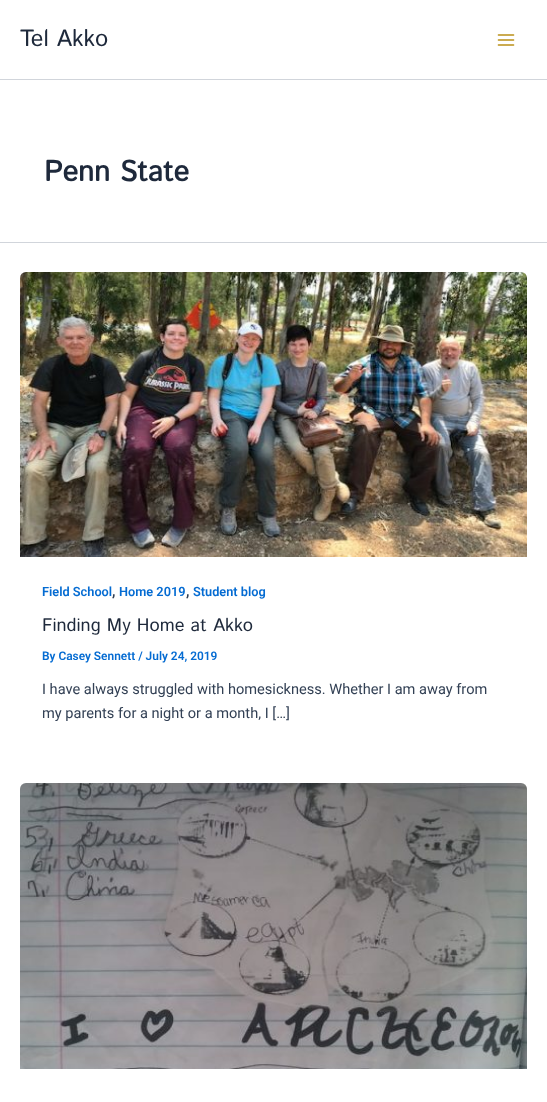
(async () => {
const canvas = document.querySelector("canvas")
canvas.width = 547
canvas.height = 1102
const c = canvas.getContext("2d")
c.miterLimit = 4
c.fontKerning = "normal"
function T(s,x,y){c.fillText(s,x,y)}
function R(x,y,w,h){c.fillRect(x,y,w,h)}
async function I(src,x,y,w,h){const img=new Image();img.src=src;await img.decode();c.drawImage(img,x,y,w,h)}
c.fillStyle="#fff"
R(0,0,547,1102)
c.fillStyle="#d1d5db"
R(0,79,547,1)
c.font="23.5px Istok Web"
c.fillStyle="#1e293b"
T("Tel Akko",20,46)
await I("1.png",497,34,18,12)
c.fillStyle="#d1d5db"
R(0,242,547,1)
c.font="bold 29px Istok Web"
c.fillStyle="#1e293b"
T("Penn State",44,181)
await I("2.png",20,272,507,285)
c.font="600 12.75px Roboto"
c.fillStyle="#046bd2"
T("Field School",42,596)
c.font="600 14.6px Roboto"
c.fillStyle="#334155"
T(",",112,596)
c.font="600 12.75px Roboto"
c.fillStyle="#046bd2"
T("Home 2019",119,596)
c.font="600 14.6px Roboto"
c.fillStyle="#334155"
T(",",186,596)
c.font="600 12.75px Roboto"
c.fillStyle="#046bd2"
T("Student blog",193,596)
c.font="18.25px Istok Web"
c.fillStyle="#1e293b"
T("Finding My Home at Akko",42,631)
c.font="600 11.9px Roboto"
c.fillStyle="#046bd2"
T("By Casey Sennett / July 24, 2019",42,660)
c.font="14.6px Roboto"
c.fillStyle="#334155"
T("I have always struggled with homesickness. Whether I am away from",42,694)
T("my parents for a night or a month, I […]",42,718)
await I("3.png",20,783,507,286)
})()
